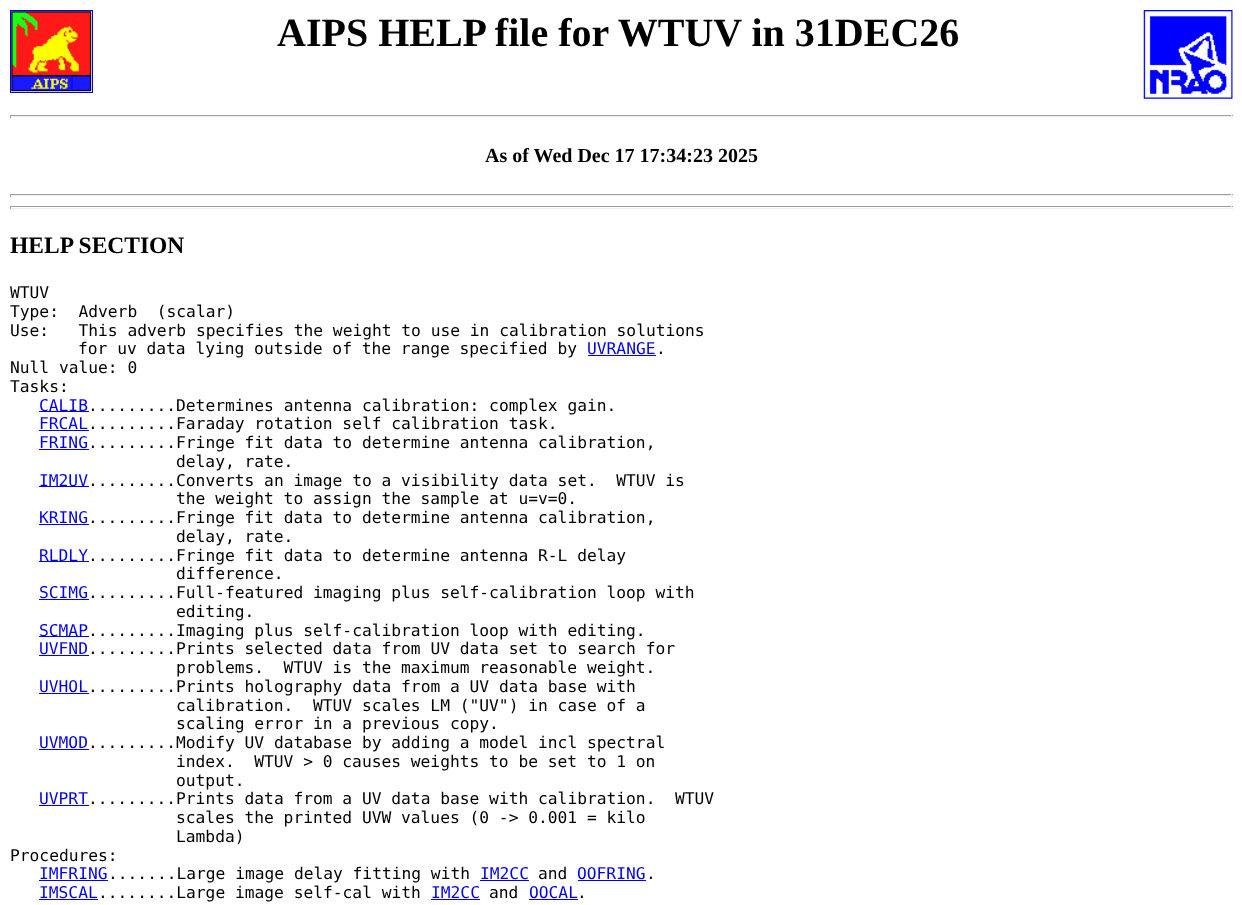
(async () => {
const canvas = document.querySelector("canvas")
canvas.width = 1242
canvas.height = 905
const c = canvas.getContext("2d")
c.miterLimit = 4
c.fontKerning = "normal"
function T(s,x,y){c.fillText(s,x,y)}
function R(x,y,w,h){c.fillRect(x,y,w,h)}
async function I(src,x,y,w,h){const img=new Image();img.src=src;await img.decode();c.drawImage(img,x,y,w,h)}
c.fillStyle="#fff"
R(0,0,1242,905)
c.strokeStyle="#00e"
c.strokeRect(10.5,10.5,82,82)
await I("1.png",11,11,81,81)
c.font="bold 40px Liberation Serif"
c.fillStyle="#000"
T("AIPS HELP file for WTUV in 31DEC26",277,46)
await I("2.png",1143,10,90,89)
c.fillStyle="#9f9f9f"
R(10,115,1223,1)
c.fillStyle="#eee"
R(1231,115,1,3)
R(10,116,1223,1)
c.fillStyle="#9f9f9f"
R(10,115,1,3)
c.font="bold 20px Liberation Serif"
c.fillStyle="#000"
T("As of Wed Dec 17 17:34:23 2025",485,162)
c.fillStyle="#9f9f9f"
R(10,194,1223,1)
c.fillStyle="#eee"
R(1231,194,1,3)
R(10,195,1223,1)
c.fillStyle="#9f9f9f"
R(10,194,1,3)
R(10,206,1223,1)
c.fillStyle="#eee"
R(1231,206,1,3)
R(10,208,1223,1)
c.fillStyle="#9f9f9f"
R(10,206,1,3)
c.font="bold 23.5px Liberation Serif"
c.fillStyle="#000"
T("HELP SECTION",10,253)
c.font="16.25px DejaVu Sans Mono"
T("WTUV",10,298)
T("Type:  Adverb  (scalar)",10,317)
T("Use:   This adverb specifies the weight to use in calibration solutions",10,336)
T("for uv data lying outside of the range specified by",78,354)
c.fillStyle="#00e"
T("UVRANGE",587,354)
R(588,355,68,1)
c.fillStyle="#000"
T(".",656,354)
T("Null value: 0",10,373)
T("Tasks:",10,392)
c.fillStyle="#00e"
R(39,411,50,1)
T("CALIB",39,411)
c.fillStyle="#000"
T(".........Determines antenna calibration: complex gain.",88,411)
c.fillStyle="#00e"
T("FRCAL",39,429)
R(39,430,50,1)
c.fillStyle="#000"
T(".........Faraday rotation self calibration task.",88,429)
c.fillStyle="#00e"
T("FRING",39,448)
R(39,449,50,1)
c.fillStyle="#000"
T(".........Fringe fit data to determine antenna calibration,",88,448)
T("delay, rate.",176,467)
c.fillStyle="#00e"
R(39,486,50,1)
T("IM2UV",39,486)
c.fillStyle="#000"
T(".........Converts an image to a visibility data set.  WTUV is",88,486)
T("the weight to assign the sample at u=v=0.",176,504)
c.fillStyle="#00e"
T("KRING",39,523)
R(39,524,50,1)
c.fillStyle="#000"
T(".........Fringe fit data to determine antenna calibration,",88,523)
T("delay, rate.",176,542)
c.fillStyle="#00e"
T("RLDLY",39,561)
R(39,561,50,1)
c.fillStyle="#000"
T(".........Fringe fit data to determine antenna R-L delay",88,561)
T("difference.",176,579)
c.fillStyle="#00e"
T("SCIMG",39,598)
R(39,599,50,1)
c.fillStyle="#000"
T(".........Full-featured imaging plus self-calibration loop with",88,598)
T("editing.",176,617)
c.fillStyle="#00e"
R(39,636,50,1)
T("SCMAP",39,636)
c.fillStyle="#000"
T(".........Imaging plus self-calibration loop with editing.",88,636)
c.fillStyle="#00e"
T("UVFND",39,654)
R(39,655,50,1)
c.fillStyle="#000"
T(".........Prints selected data from UV data set to search for",88,654)
T("problems.  WTUV is the maximum reasonable weight.",176,673)
c.fillStyle="#00e"
T("UVHOL",39,692)
R(39,693,50,1)
c.fillStyle="#000"
T(".........Prints holography data from a UV data base with",88,692)
T("calibration.  WTUV scales LM (\"UV\") in case of a",176,711)
T("scaling error in a previous copy.",176,729)
c.fillStyle="#00e"
T("UVMOD",39,748)
R(39,749,50,1)
c.fillStyle="#000"
T(".........Modify UV database by adding a model incl spectral",88,748)
T("index.  WTUV > 0 causes weights to be set to 1 on",176,767)
T("output.",176,786)
c.fillStyle="#00e"
T("UVPRT",39,804)
R(39,805,50,1)
c.fillStyle="#000"
T(".........Prints data from a UV data base with calibration.  WTUV",88,804)
T("scales the printed UVW values (0 -> 0.001 = kilo",176,823)
T("Lambda)",176,842)
T("Procedures:",10,861)
c.fillStyle="#00e"
T("IMFRING",39,879)
R(39,880,69,1)
c.fillStyle="#000"
T(".......Large image delay fitting with",108,879)
c.fillStyle="#00e"
T("IM2CC",480,879)
R(480,880,49,1)
c.fillStyle="#000"
T("and",538,879)
c.fillStyle="#00e"
T("OOFRING",577,879)
R(578,880,68,1)
c.fillStyle="#000"
T(".",646,879)
c.fillStyle="#00e"
T("IMSCAL",39,898)
R(39,899,59,1)
c.fillStyle="#000"
T("........Large image self-cal with",98,898)
c.fillStyle="#00e"
T("IM2CC",431,898)
R(431,899,49,1)
c.fillStyle="#000"
T("and",489,898)
c.fillStyle="#00e"
T("OOCAL",529,898)
R(529,899,49,1)
c.fillStyle="#000"
T(".",577,898)
})()
